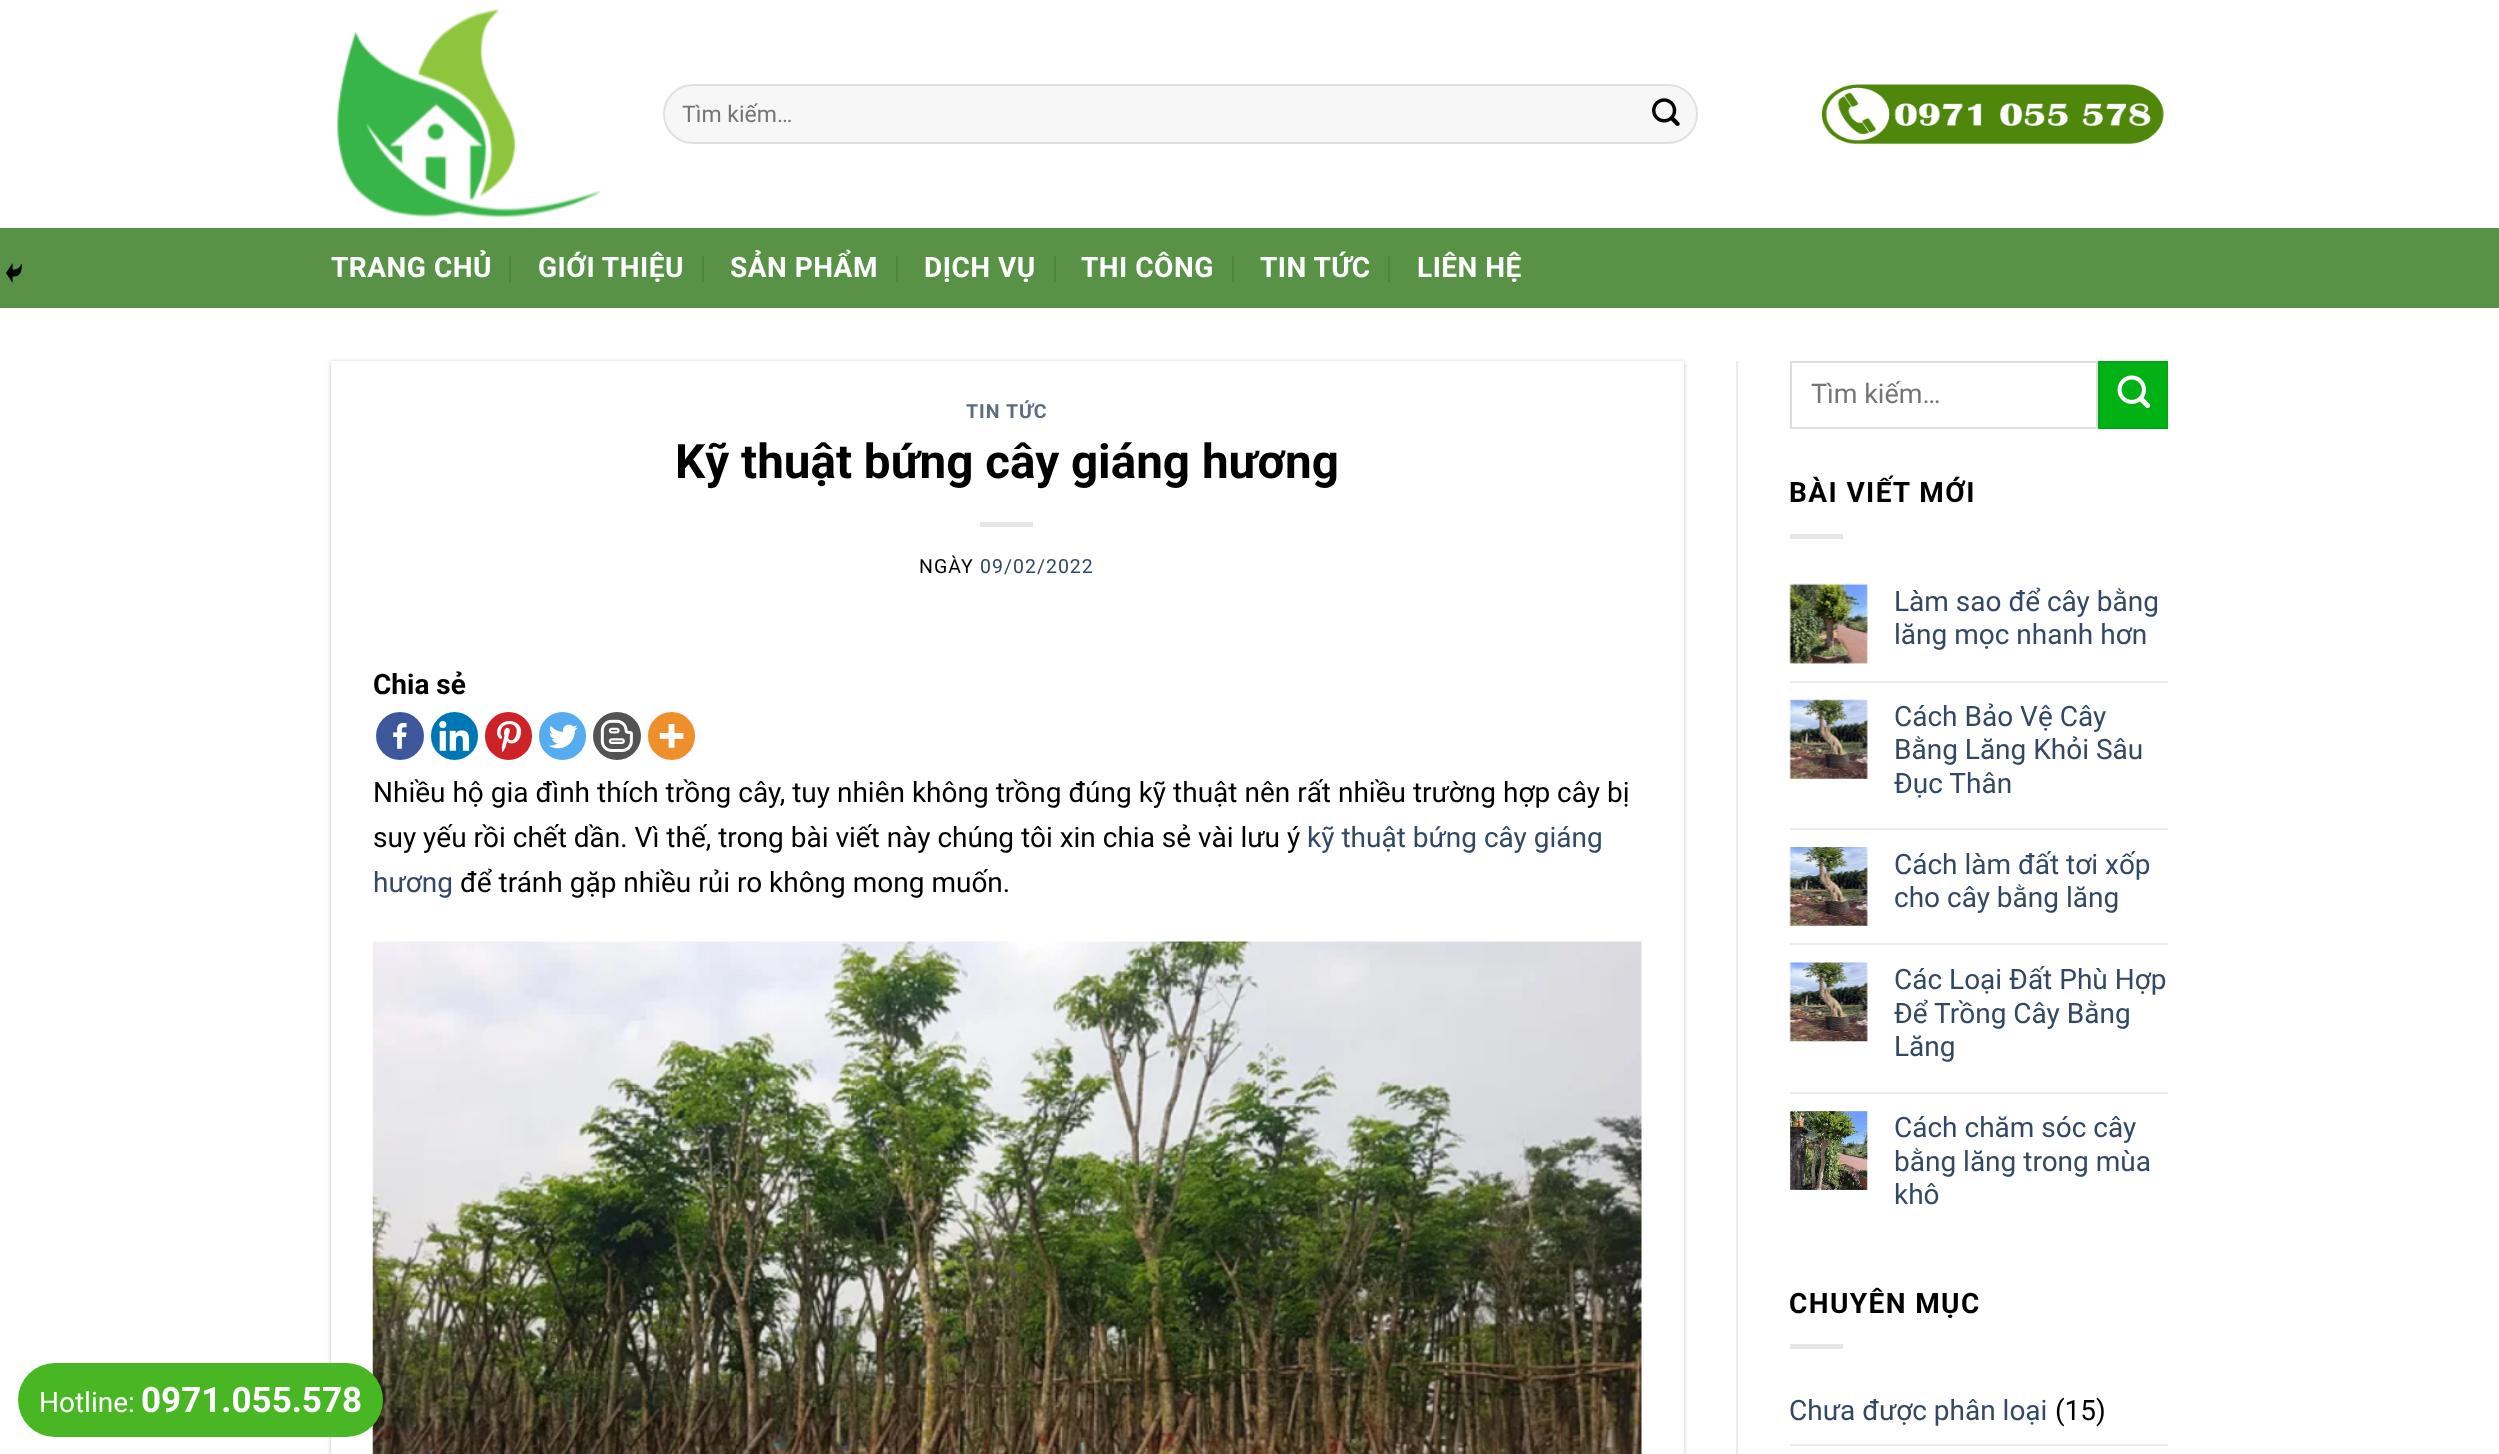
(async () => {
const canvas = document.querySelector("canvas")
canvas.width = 2499
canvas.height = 1454
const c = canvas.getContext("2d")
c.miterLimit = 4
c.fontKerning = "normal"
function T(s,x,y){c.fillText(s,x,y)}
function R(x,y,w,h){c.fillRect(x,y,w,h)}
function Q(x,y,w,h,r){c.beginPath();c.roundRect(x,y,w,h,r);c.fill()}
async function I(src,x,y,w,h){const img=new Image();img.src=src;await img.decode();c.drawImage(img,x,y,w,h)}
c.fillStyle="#fff"
R(0,0,2499,1454)
c.fillStyle="#0000003d"
c.filter="blur(2px)"
c.beginPath()
c.rect(331,362,1353,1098)
c.fill()
c.filter="none"
c.fillStyle="#fff"
R(331,361,1353,1093)
await I("11.png",372,941,1270,513)
c.fillStyle="#48b723"
Q(18,1363,365,74,37)
c.font="28px Roboto"
c.fillStyle="#fff"
T("Hotline:",39,1412)
c.font="bold 35px Roboto"
T("0971.055.578",141,1412)
await I("1.png",337,9,264,208)
c.fillStyle="#f7f7f7"
Q(663,84,1035,60,30)
c.beginPath()
c.roundRect(664,85,1033,58,29)
c.strokeStyle="#00000017"
c.lineWidth=2
c.stroke()
c.font="23px Roboto"
c.fillStyle="#757575"
T("Tìm kiếm…",682,122)
await I("2.png",1652,98,28,28)
await I("3.png",1821,84,343,61)
c.fillStyle="#579247"
R(0,228,2499,80)
c.letterSpacing="0.5px"
c.font="bold 28px Roboto"
c.fillStyle="#fff"
T("TRANG CHỦ",331,277)
c.fillStyle="#4e8340"
R(509,256,2,26)
c.fillStyle="#fff"
T("GIỚI THIỆU",538,277)
c.fillStyle="#4e8340"
R(702,256,2,26)
c.fillStyle="#fff"
T("SẢN PHẨM",730,277)
c.fillStyle="#4e8340"
R(896,256,2,26)
c.fillStyle="#fff"
T("DỊCH VỤ",924,277)
c.fillStyle="#4e8340"
R(1054,256,2,26)
c.fillStyle="#fff"
T("THI CÔNG",1081,277)
c.fillStyle="#4e8340"
R(1232,256,2,26)
c.fillStyle="#fff"
T("TIN TỨC",1260,277)
c.fillStyle="#4e8340"
R(1388,256,2,26)
c.fillStyle="#fff"
T("LIÊN HỆ",1417,277)
c.letterSpacing="1px"
c.font="bold 19.5px Roboto"
c.fillStyle="#5c6d81"
T("TIN TỨC",966,418)
c.letterSpacing="0px"
c.font="bold 47.6px Roboto"
c.fillStyle="#000"
T("Kỹ thuật bứng cây giáng hương",675,478)
c.fillStyle="#e6e6e6"
R(980,522,53,5)
c.letterSpacing="1px"
c.font="19.5px Roboto"
c.fillStyle="#000"
T("NGÀY",919,573)
c.fillStyle="#334862"
T("09/02/2022",980,573)
await I("4.png",6,263,16,20)
c.letterSpacing="0px"
c.font="bold 28px Roboto"
c.fillStyle="#000"
T("Chia sẻ",373,694)
c.fillStyle="#3c589a"
c.beginPath()
c.arc(400,736,24,0,7)
c.fill()
await I("5.png",393,722,14,27)
c.fillStyle="#0077b5"
Q(431,712,47,48,23.5)
await I("6.png",439,721,31,30)
c.fillStyle="#cc2329"
Q(485,712,47,48,23.5)
await I("7.png",497,721,25,31)
c.fillStyle="#55acee"
Q(539,712,47,48,23.5)
await I("8.png",549,724,29,25)
c.fillStyle="#535353"
c.beginPath()
c.arc(617,736,24,0,7)
c.fill()
await I("9.png",600,719,33,33)
c.fillStyle="#ee8e2d"
Q(648,712,47,48,23.5)
await I("10.png",659,724,25,24)
c.font="28px Roboto"
c.fillStyle="#000"
T("Nhiều hộ gia đình thích trồng cây, tuy nhiên không trồng đúng kỹ thuật nên rất nhiều trường hợp cây bị",373,802)
T("suy yếu rồi chết dần. Vì thế, trong bài viết này chúng tôi xin chia sẻ vài lưu ý",373,847)
c.fillStyle="#334862"
T("kỹ thuật bứng cây giáng",1307,847)
T("hương",373,892)
c.fillStyle="#000"
T("để tránh gặp nhiều rủi ro không mong muốn.",460,892)
c.fillStyle="#ececec"
R(1736,361,2,1093)
c.strokeStyle="#ddd"
c.strokeRect(1791,362,306,66)
c.font="27px Roboto"
c.fillStyle="#757575"
T("Tìm kiếm…",1811,403)
c.fillStyle="#00b214"
c.beginPath()
c.rect(2099,362,68,66)
c.fill()
c.strokeStyle="#00a913"
c.stroke()
await I("12.png",2117,375,34,33)
c.letterSpacing="1.4px"
c.font="bold 28px Roboto"
c.fillStyle="#000"
T("BÀI VIẾT MỚI",1789,502)
c.fillStyle="#e6e6e6"
R(1790,534,53,5)
await I("13.png",1789,583,79,81)
c.letterSpacing="0px"
c.font="28px Roboto"
c.fillStyle="#334862"
T("Làm sao để cây bằng",1894,611)
T("lăng mọc nhanh hơn",1894,644)
c.fillStyle="#ececec"
R(1790,681,378,2)
await I("14.png",1789,699,79,80)
c.fillStyle="#334862"
T("Cách Bảo Vệ Cây",1894,726)
T("Bằng Lăng Khỏi Sâu",1894,759)
T("Đục Thân",1894,793)
c.fillStyle="#ececec"
R(1790,828,378,2)
await I("15.png",1789,847,79,79)
c.fillStyle="#334862"
T("Cách làm đất tơi xốp",1894,874)
T("cho cây bằng lăng",1894,907)
c.fillStyle="#ececec"
R(1790,943,378,2)
await I("16.png",1789,962,79,80)
c.fillStyle="#334862"
T("Các Loại Đất Phù Hợp",1894,989)
T("Để Trồng Cây Bằng",1894,1023)
T("Lăng",1894,1056)
c.fillStyle="#ececec"
R(1790,1092,378,2)
await I("17.png",1790,1111,78,79)
c.fillStyle="#334862"
T("Cách chăm sóc cây",1894,1137)
T("bằng lăng trong mùa",1894,1171)
T("khô",1894,1204)
c.letterSpacing="1.4px"
c.font="bold 28px Roboto"
c.fillStyle="#000"
T("CHUYÊN MỤC",1789,1313)
c.fillStyle="#e6e6e6"
R(1790,1344,53,5)
c.letterSpacing="0px"
c.font="28px Roboto"
c.fillStyle="#334862"
T("Chưa được phân loại",1789,1420)
c.fillStyle="#000"
T("(15)",2055,1420)
c.fillStyle="#ececec"
R(1790,1444,378,2)
})()
